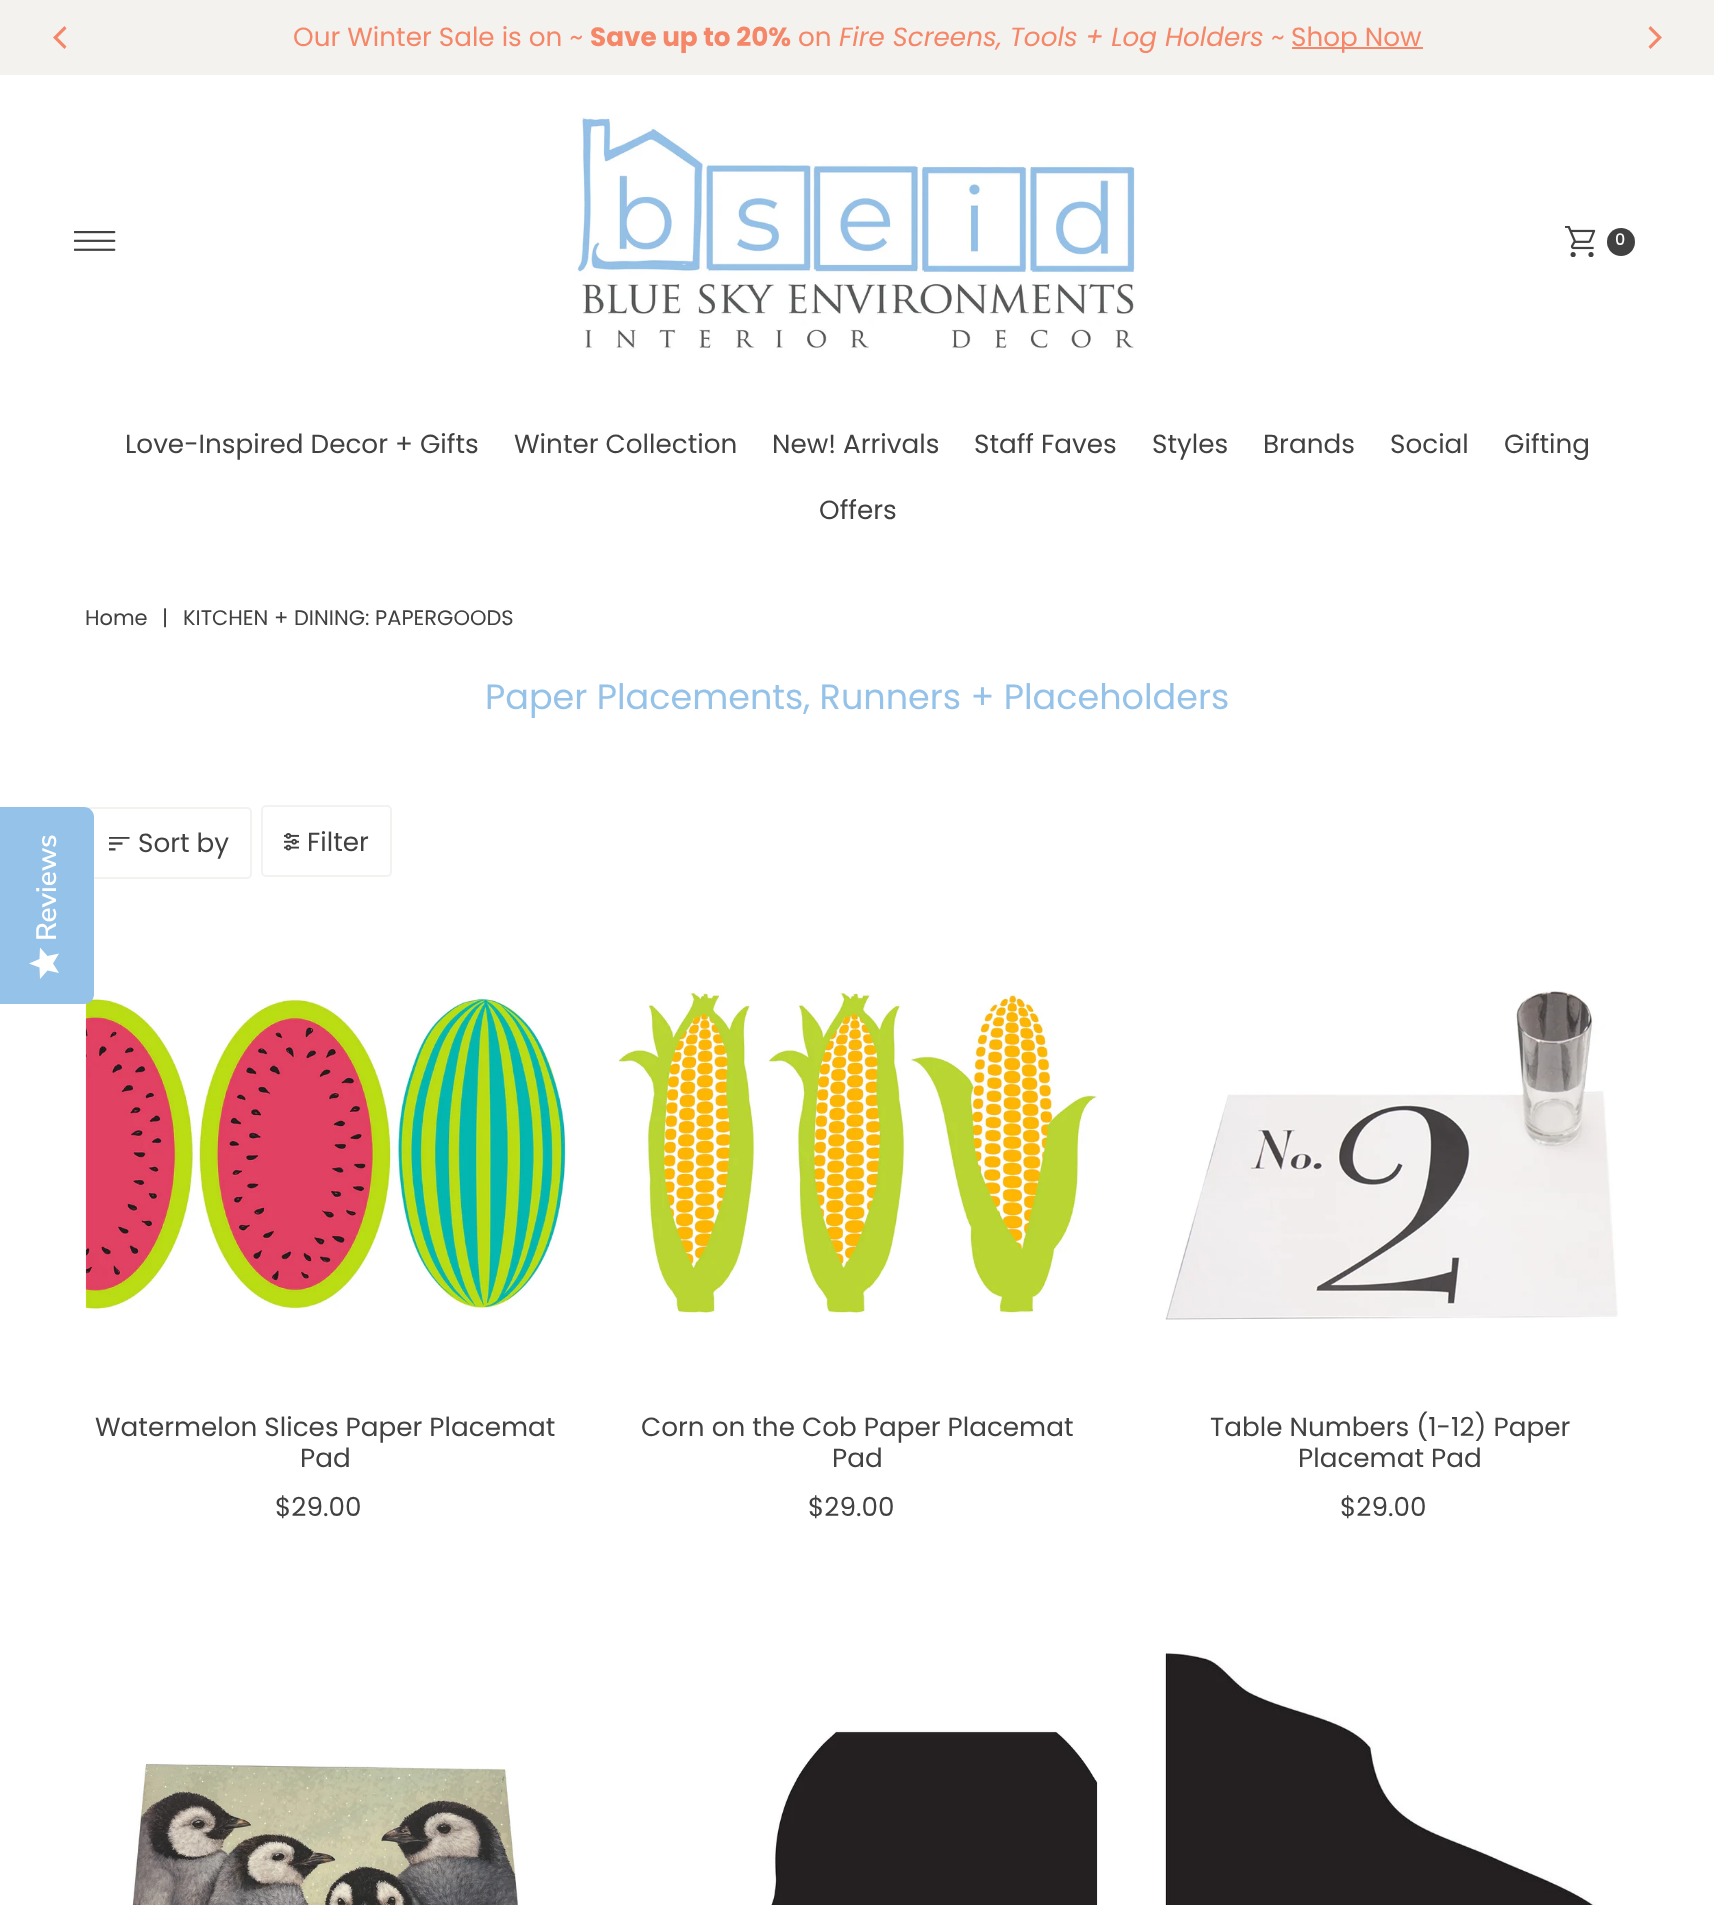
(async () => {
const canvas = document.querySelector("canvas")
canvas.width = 1714
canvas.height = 1905
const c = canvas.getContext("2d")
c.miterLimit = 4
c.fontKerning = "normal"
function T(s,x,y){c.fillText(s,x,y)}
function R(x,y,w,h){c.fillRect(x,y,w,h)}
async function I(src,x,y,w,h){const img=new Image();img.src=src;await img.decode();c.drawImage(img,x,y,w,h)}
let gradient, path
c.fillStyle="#fff"
R(0,0,1714,1905)
c.beginPath()
c.roundRect(87,808,164,70,4)
c.strokeStyle="#f4f2ef"
c.lineWidth=2
c.stroke()
await I("6.png",85,996,481,316)
c.fillStyle="#95c2e8"
path = new Path2D("M0 1004v-197h84c6 0 10 5 10 10v177c0 6-4 10-10 10z")
c.fill(path)
c.font="200 28px Nunito Sans"
c.fillStyle="#fff"
c.save()
c.translate(56,941)
c.rotate(-90 * Math.PI / 180)
c.fillText("Reviews",0,0)
c.restore()
gradient = c.createLinearGradient(29,979,29,948)
gradient.addColorStop(1,"#fff")
gradient.addColorStop(1,"#eaeaea")
c.fillStyle = gradient
path = new Path2D("M53 963.5l6-10l-11.5 2.5l-7.5-8.5l-.5 11.5l-10.5 4.5l10.5 4l.5 11.5l7.5-8.5l11.5 2.5z")
c.fill(path)
c.fillStyle="#f4f2ef"
R(0,0,1714,75)
c.fillStyle="#f58667"
path = new Path2D("M53 37.5l11.5 11.5l2-2.5l-9-9l9-9l-2-2.5z")
c.fill(path)
c.font="26.25px Poppins"
T("Our Winter Sale is on ~",293,46)
c.font="bold 26.25px Poppins"
T("Save up to 20%",590,46)
c.font="26.25px Poppins"
T("on",798,46)
c.font="italic 26.25px Poppins"
T("Fire Screens, Tools + Log Holders",839,46)
c.font="26.25px Poppins"
T("~",1271,46)
R(1292,47,131,2)
T("Shop Now",1291,46)
path = new Path2D("M1662 37.5l-11.5-11.5l-2 2.5l9 9l-9 9l2 2.5z")
c.fill(path)
await I("1.png",74,231,42,20)
await I("2.png",574,116,561,233)
await I("3.png",1565,226,31,31)
c.fillStyle="#414141"
c.beginPath()
c.arc(1621,242,14,0,7)
c.fill()
c.font="500 16px Poppins"
c.fillStyle="#fff"
T("0",1615,245)
c.font="26.25px Poppins"
c.fillStyle="#414141"
T("Love-Inspired Decor + Gifts",125,453)
T("Winter Collection",514,453)
T("New! Arrivals",772,453)
T("Staff Faves",974,453)
T("Styles",1152,453)
T("Brands",1263,453)
T("Social",1390,453)
T("Gifting",1504,453)
T("Offers",819,519)
c.font="21px Poppins"
T("Home",85,625)
T("|",162,625)
T("KITCHEN + DINING: PAPERGOODS",183,625)
c.font="35px Poppins"
c.fillStyle="#95c2e8"
T("Paper Placements, Runners + Placeholders",485,709)
await I("4.png",109,837,21,14)
c.font="26.25px Poppins"
c.fillStyle="#414141"
T("Sort by",138,852)
c.beginPath()
c.roundRect(262,806,129,70,4)
c.stroke()
await I("5.png",284,833,15,18)
T("Filter",307,851)
T("Watermelon Slices Paper Placemat",95,1436)
T("Pad",300,1467)
T("$29.00",275,1516)
await I("7.png",618,990,479,324)
T("Corn on the Cob Paper Placemat",641,1436)
T("Pad",832,1467)
T("$29.00",808,1516)
await I("8.png",1165,990,453,330)
T("Table Numbers (1-12) Paper",1210,1436)
T("Placemat Pad",1298,1467)
T("$29.00",1340,1516)
await I("9.png",132,1763,387,142)
await I("10.png",771,1730,327,175)
await I("11.png",1164,1653,432,252)
})()
